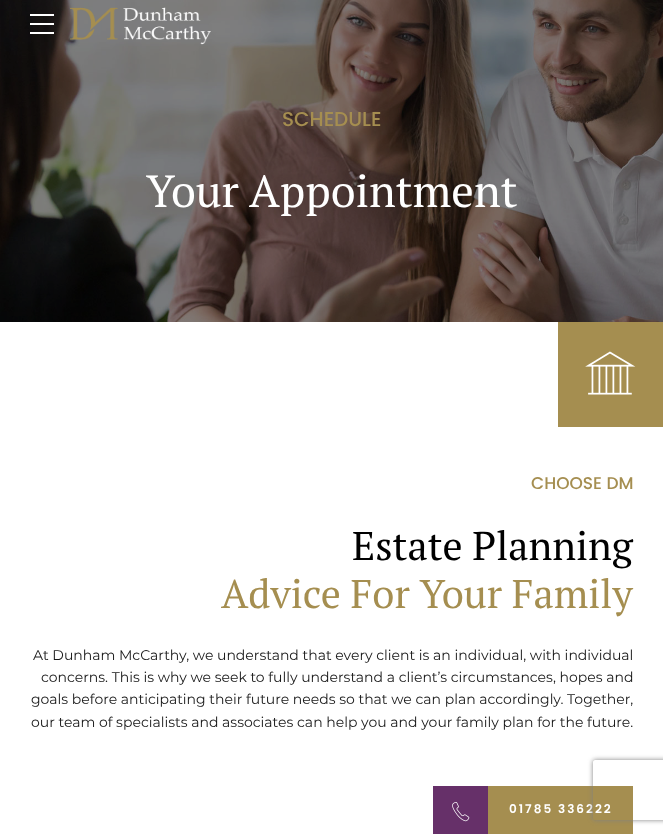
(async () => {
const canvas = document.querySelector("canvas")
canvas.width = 663
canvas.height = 834
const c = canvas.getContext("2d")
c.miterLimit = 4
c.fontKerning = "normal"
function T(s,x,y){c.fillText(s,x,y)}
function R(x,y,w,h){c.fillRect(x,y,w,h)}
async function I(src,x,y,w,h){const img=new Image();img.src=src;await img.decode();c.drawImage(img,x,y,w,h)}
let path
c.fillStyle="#fff"
R(0,0,663,834)
await I("2.png",0,0,663,322)
R(30,14,24,2)
R(30,23,24,2)
R(30,32,24,2)
await I("1.png",70,7,141,38)
c.font="500 20px Poppins"
c.fillStyle="#a58e50"
T("SCHEDULE",282,126)
c.font="45px PT Serif"
c.fillStyle="#fff"
T("Your Appointment",146,207)
c.fillStyle="#a58e50"
R(558,322,105,105)
await I("3.png",585,351,51,44)
c.font="500 17px Poppins"
T("CHOOSE DM",531,489)
c.font="40px PT Serif"
c.fillStyle="#000"
T("Estate Planning",352,560)
c.fillStyle="#a58e50"
T("Advice For Your Family",221,608)
c.font="14px Montserrat"
c.fillStyle="#181818"
T("At Dunham McCarthy, we understand that every client is an individual, with individual",33,660)
T("concerns. This is why we seek to fully understand a client’s circumstances, hopes and",41,682)
T("goals before anticipating their future needs so that we can plan accordingly. Together,",31,704)
T("our team of specialists and associates can help you and your family plan for the future.",31,727)
c.fillStyle="#663069"
R(433,786,55,48)
await I("4.png",452,802,18,20)
c.fillStyle="#a58e50"
R(488,786,145,48)
c.letterSpacing="2px"
c.font="600 12px Poppins"
c.fillStyle="#fff"
T("01785 336222",509,813)
c.save()
path = new Path2D("M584 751h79v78h-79zm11 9h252c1 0 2 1 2 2v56c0 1-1 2-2 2h-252c-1 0-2-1-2-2v-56c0-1 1-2 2-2z")
c.clip(path,"evenodd")
c.fillStyle="#808080"
c.filter="blur(2.5px)"
c.beginPath()
c.roundRect(593,760,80,60,2)
c.fill()
c.filter="none"
c.restore()
})()
